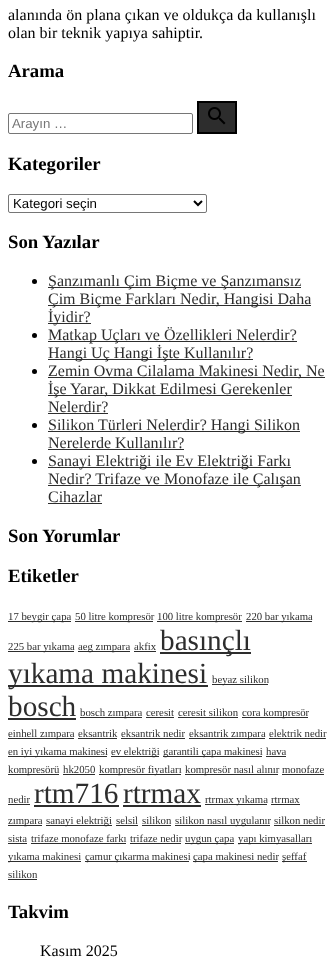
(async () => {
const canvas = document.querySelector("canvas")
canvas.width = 335
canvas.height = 967
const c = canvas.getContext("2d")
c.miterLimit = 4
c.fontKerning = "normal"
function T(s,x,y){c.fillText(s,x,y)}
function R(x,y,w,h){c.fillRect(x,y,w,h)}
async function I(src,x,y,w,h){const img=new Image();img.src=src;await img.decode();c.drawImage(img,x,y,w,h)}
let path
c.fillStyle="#fff"
R(0,0,335,967)
c.font="16px Liberation Serif"
c.fillStyle="#000"
T("alanında ön plana çıkan ve oldukça da kullanışlı",8,20)
T("olan bir teknik yapıya sahiptir.",8,38)
c.font="bold 18.75px Liberation Serif"
T("Arama",8,77)
c.beginPath()
c.roundRect(8.5,113.5,184,20,1.5)
c.strokeStyle="#767676"
c.stroke()
c.font="13.25px Liberation Sans"
c.fillStyle="#757575"
T("Arayın …",12,128)
c.fillStyle="#2d2d2d"
c.beginPath()
c.rect(198,102,38,31)
c.fill()
c.strokeStyle="#000"
c.lineWidth=2
c.stroke()
await I("1.png",208,107,18,18)
c.font="bold 18.75px Liberation Serif"
c.fillStyle="#000"
T("Kategoriler",8,170)
c.beginPath()
c.roundRect(8.5,194.5,198,18,1.5)
c.strokeStyle="#767676"
c.lineWidth=1
c.stroke()
path = new Path2D("M194 201l4 4l4-4")
c.strokeStyle="#000"
c.lineWidth=2
c.stroke(path)
c.font="13.25px Liberation Sans"
T("Kategori seçin",13,208)
c.font="bold 18.75px Liberation Serif"
T("Son Yazılar",8,248)
c.beginPath()
c.arc(34.5,281.5,2.5,0,7)
c.fill()
c.fillStyle="#2d2d2d"
R(48,287,253,1)
c.font="16px Liberation Serif"
T("Şanzımanlı Çim Biçme ve Şanzımansız",48,286)
R(48,305,263,1)
T("Çim Biçme Farkları Nedir, Hangisi Daha",48,304)
R(48,323,43,1)
T("İyidir?",48,322)
c.fillStyle="#000"
c.beginPath()
c.arc(34.5,335.5,2.5,0,7)
c.fill()
c.fillStyle="#2d2d2d"
R(48,341,249,1)
T("Matkap Uçları ve Özellikleri Nelerdir?",48,340)
R(48,359,205,1)
T("Hangi Uç Hangi İşte Kullanılır?",48,358)
c.fillStyle="#000"
c.beginPath()
c.arc(34.5,371.5,2.5,0,7)
c.fill()
c.fillStyle="#2d2d2d"
R(48,377,277,1)
T("Zemin Ovma Cilalama Makinesi Nedir, Ne",48,376)
R(48,395,244,1)
T("İşe Yarar, Dikkat Edilmesi Gerekenler",48,394)
T("Nelerdir?",48,412)
R(48,413,60,1)
c.fillStyle="#000"
c.beginPath()
c.arc(34.5,425.5,2.5,0,7)
c.fill()
c.fillStyle="#2d2d2d"
R(48,431,252,1)
T("Silikon Türleri Nelerdir? Hangi Silikon",48,430)
T("Nerelerde Kullanılır?",48,448)
R(48,449,136,1)
c.fillStyle="#000"
c.beginPath()
c.arc(34.5,461.5,2.5,0,7)
c.fill()
c.fillStyle="#2d2d2d"
R(48,467,243,1)
T("Sanayi Elektriği ile Ev Elektriği Farkı",48,466)
R(48,485,253,1)
T("Nedir? Trifaze ve Monofaze ile Çalışan",48,484)
T("Cihazlar",48,502)
R(48,503,54,1)
c.font="bold 18.75px Liberation Serif"
c.fillStyle="#000"
T("Son Yorumlar",8,542)
T("Etiketler",8,582)
c.fillStyle="#2d2d2d"
R(8,621,63,1)
c.font="10.75px Liberation Serif"
T("17 beygir çapa",8,620)
R(75,621,78,1)
T("50 litre kompresör",75,620)
R(157,621,85,1)
T("100 litre kompresör",157,620)
R(246,621,66,1)
T("220 bar yıkama",246,620)
R(8,651,66,1)
T("225 bar yıkama",8,650)
R(78,651,52,1)
T("aeg zımpara",78,650)
T("akfix",134,650)
R(134,651,22,1)
R(160,652,91,2)
c.font="29.25px Liberation Serif"
T("basınçlı",160,650)
R(8,685,200,2)
T("yıkama makinesi",8,683)
R(212,684,56,1)
c.font="10.75px Liberation Serif"
T("beyaz silikon",212,683)
c.font="29.25px Liberation Serif"
T("bosch",8,716)
R(8,718,68,2)
R(80,717,62,1)
c.font="10.75px Liberation Serif"
T("bosch zımpara",80,716)
T("ceresit",146,716)
R(146,717,28,1)
T("ceresit silikon",178,716)
R(178,717,60,1)
R(242,717,66,1)
T("cora kompresör",242,716)
R(8,738,66,1)
T("einhell zımpara",8,737)
T("eksantrik",78,737)
R(78,738,39,1)
T("eksantrik nedir",121,737)
R(121,738,64,1)
R(189,738,76,1)
T("eksantrik zımpara",189,737)
T("elektrik nedir",269,737)
R(269,738,57,1)
R(8,756,99,1)
T("en iyi yıkama makinesi",8,755)
R(111,756,48,1)
T("ev elektriği",111,755)
R(163,756,99,1)
T("garantili çapa makinesi",163,755)
T("hava",266,755)
R(266,756,20,1)
R(8,774,51,1)
T("kompresörü",8,773)
T("hk2050",63,773)
R(63,774,32,1)
R(99,774,82,1)
T("kompresör fiyatları",99,773)
R(185,774,93,1)
T("kompresör nasıl alınır",185,773)
T("monofaze",282,773)
R(282,774,42,1)
T("nedir",8,803)
R(8,804,22,1)
c.font="29.25px Liberation Serif"
T("rtm716",34,803)
R(34,805,85,2)
T("rtrmax",123,803)
R(123,805,78,2)
R(205,804,62,1)
c.font="10.75px Liberation Serif"
T("rtrmax yıkama",205,803)
T("rtrmax",271,803)
R(271,804,29,1)
R(8,825,34,1)
T("zımpara",8,824)
R(46,825,66,1)
T("sanayi elektriği",46,824)
T("selsil",116,824)
R(116,825,22,1)
T("silikon",142,824)
R(142,825,29,1)
R(175,825,95,1)
T("silikon nasıl uygulanır",175,824)
T("silkon nedir",274,824)
R(274,825,51,1)
T("sista",8,842)
R(8,843,19,1)
T("trifaze monofaze farkı",31,842)
R(31,843,95,1)
T("trifaze nedir",130,842)
R(130,843,51,1)
R(185,843,49,1)
T("uygun çapa",185,842)
R(238,843,74,1)
T("yapı kimyasalları",238,842)
R(8,861,73,1)
T("yıkama makinesi",8,860)
R(85,861,104,1)
T("çamur çıkarma makinesi",85,860)
R(193,861,85,1)
T("çapa makinesi nedir",193,860)
R(282,861,25,1)
T("şeffaf",282,860)
T("silikon",8,878)
R(8,879,29,1)
c.font="bold 18.75px Liberation Serif"
c.fillStyle="#000"
T("Takvim",8,918)
c.font="16px Liberation Serif"
T("Kasım 2025",40,956)
})()
